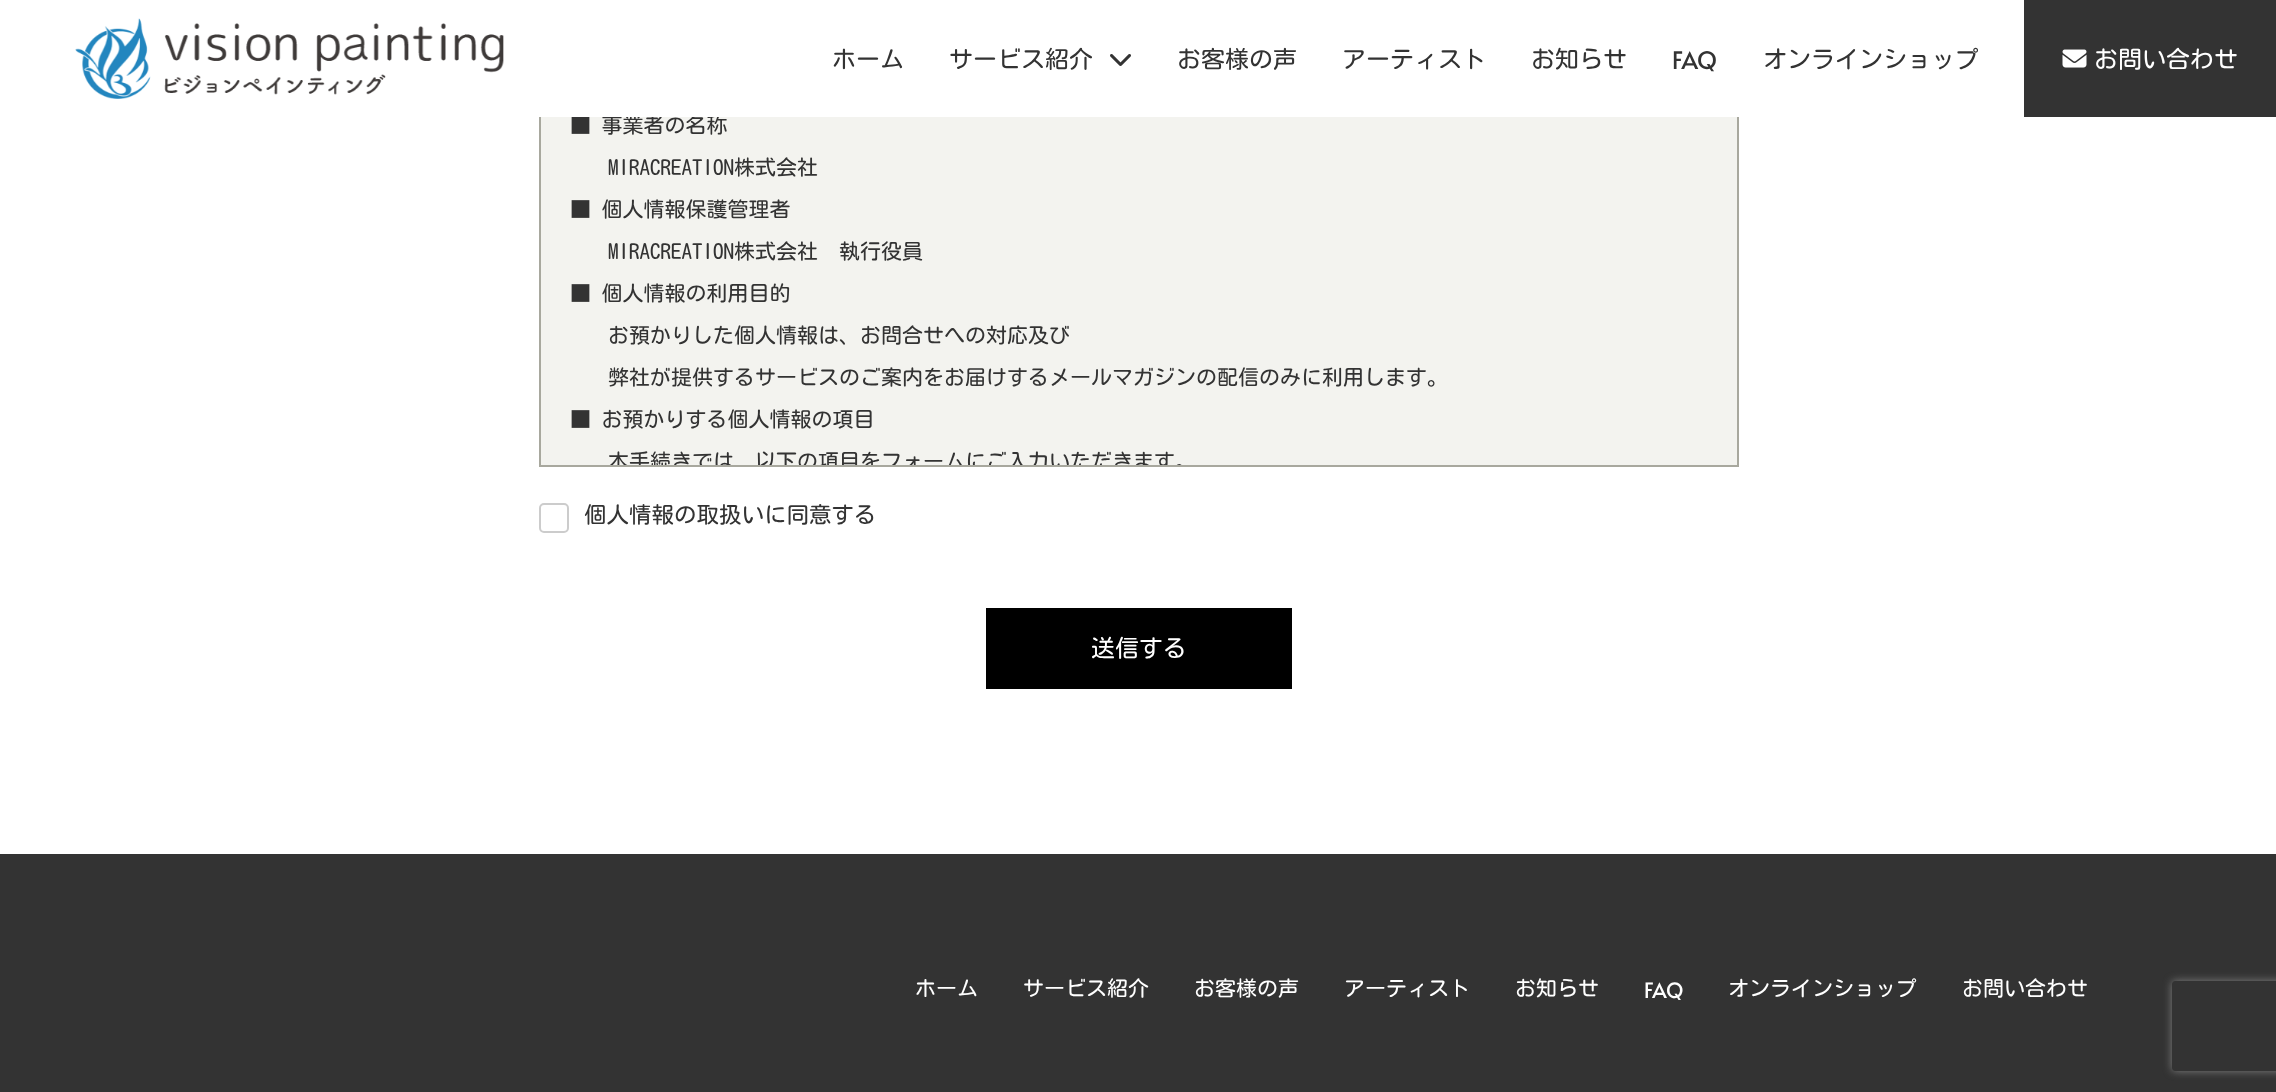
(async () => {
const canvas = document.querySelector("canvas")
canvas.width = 2276
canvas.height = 1092
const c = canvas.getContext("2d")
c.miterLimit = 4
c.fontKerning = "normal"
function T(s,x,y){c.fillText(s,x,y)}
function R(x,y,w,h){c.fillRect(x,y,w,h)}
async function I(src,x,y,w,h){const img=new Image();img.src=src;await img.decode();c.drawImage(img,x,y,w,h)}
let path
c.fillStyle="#fff"
R(0,0,2276,1092)
c.fillStyle="#f3f3ef"
R(541,117,1196,348)
c.strokeStyle="#a8a89e"
c.lineWidth=2
c.strokeRect(540,75,1198,391)
c.font="21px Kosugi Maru"
c.fillStyle="#333"
T("■ 事業者の名称",570,133)
c.fillStyle="#fff"
R(539,74,1200,43)
await I("1.png",75,18,429,81)
c.font="24px Kosugi Maru"
c.fillStyle="#333"
T("ホーム",832,68)
T("サービス紹介",949,68)
await I("2.png",1110,54,21,12)
T("お客様の声",1177,68)
T("アーティスト",1342,68)
T("お知らせ",1531,68)
c.font="24px Alata"
T("FAQ",1672,69)
c.font="24px Kosugi Maru"
T("オンラインショップ",1763,68)
R(2024,0,252,117)
await I("3.png",2062,49,25,19)
c.fillStyle="#fff"
T("お問い合わせ",2094,68)
c.font="21px Kosugi Maru"
c.fillStyle="#333"
T("MIRACREATION株式会社",608,175)
T("■ 個人情報保護管理者",570,217)
T("MIRACREATION株式会社　執行役員",608,259)
T("■ 個人情報の利用目的",570,301)
T("お預かりした個人情報は、お問合せへの対応及び",608,343)
T("弊社が提供するサービスのご案内をお届けするメールマガジンの配信のみに利用します。",608,385)
T("■ お預かりする個人情報の項目",570,427)
c.save()
c.beginPath()
c.rect(540,75,1197,390)
c.clip()
T("本手続きでは、以下の項目をフォームにご入力いただきます。",608,469)
c.restore()
c.beginPath()
c.roundRect(540,504,28,28,4)
c.strokeStyle="#ccc"
c.stroke()
c.font="22.5px Kosugi Maru"
T("個人情報の取扱いに同意する",584,523)
c.fillStyle="#000"
R(986,608,306,81)
c.font="24px Kosugi Maru"
c.fillStyle="#fff"
T("送信する",1091,657)
c.fillStyle="#333"
R(0,854,2276,238)
c.font="21px Kosugi Maru"
c.fillStyle="#fff"
T("ホーム",915,996)
T("サービス紹介",1023,996)
T("お客様の声",1194,996)
T("アーティスト",1344,996)
T("お知らせ",1515,996)
c.font="21px Alata"
T("FAQ",1644,998)
c.font="21px Kosugi Maru"
T("オンラインショップ",1728,996)
T("お問い合わせ",1962,996)
c.save()
path = new Path2D("M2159 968h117v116h-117zm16 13h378c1.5 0 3 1.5 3 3v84c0 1.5-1.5 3-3 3h-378c-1.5 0-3-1.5-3-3v-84c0-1.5 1.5-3 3-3z")
c.clip(path,"evenodd")
c.fillStyle="#808080"
c.filter="blur(4px)"
c.beginPath()
c.roundRect(2172,981,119,90,3)
c.fill()
c.filter="none"
c.restore()
})()
